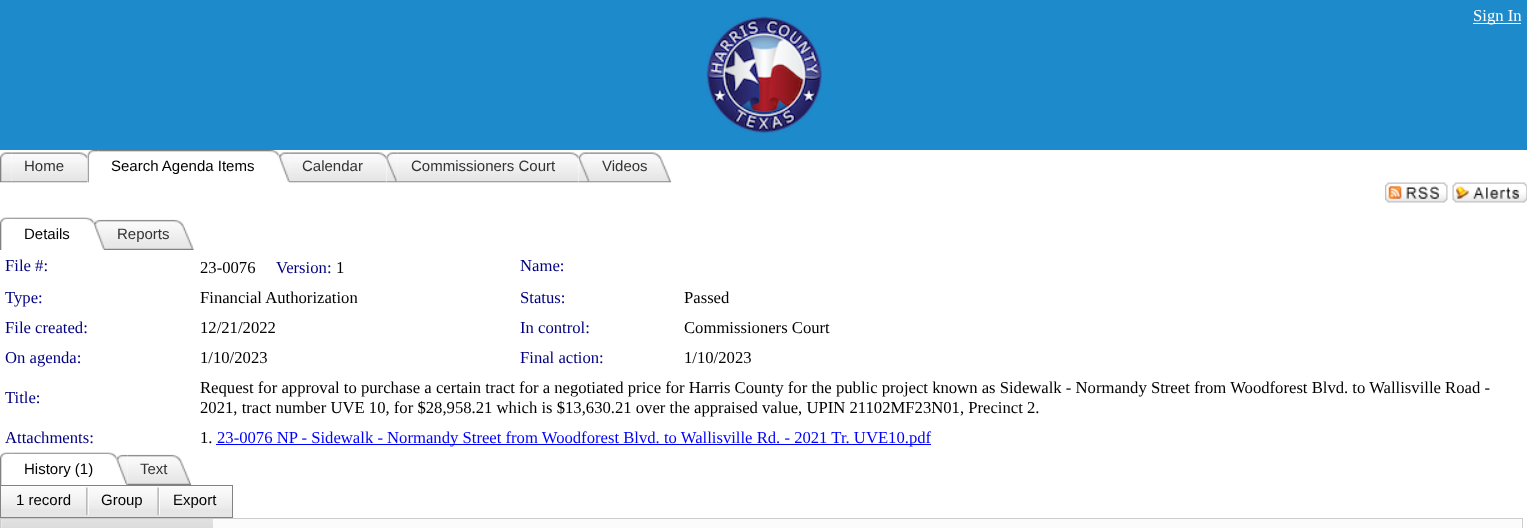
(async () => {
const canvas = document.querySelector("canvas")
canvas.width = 1527
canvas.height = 528
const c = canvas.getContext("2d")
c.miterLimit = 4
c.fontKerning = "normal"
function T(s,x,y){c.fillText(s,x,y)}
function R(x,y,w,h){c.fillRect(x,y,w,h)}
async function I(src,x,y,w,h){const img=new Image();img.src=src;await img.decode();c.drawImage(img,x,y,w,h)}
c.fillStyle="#fff"
R(0,0,1527,528)
c.fillStyle="#1d8acb"
R(0,0,1527,150)
await I("1.png",706,16,116,117)
c.fillStyle="#fff"
R(1473,23,48,1)
c.font="16.67px Liberation Serif"
T("Sign In",1473,21)
await I("2.png",0,152,12,31)
await I("3.png",11,152,77,31)
c.font="15px Liberation Sans"
c.fillStyle="#333"
T("Home",24,171)
await I("4.png",87,150,12,33)
await I("5.png",98,150,181,7)
c.fillStyle="#000"
T("Search Agenda Items",111,171)
await I("6.png",278,152,13,31)
await I("7.png",290,152,97,31)
c.fillStyle="#333"
T("Calendar",302,171)
await I("8.png",386,152,12,31)
await I("9.png",397,152,182,31)
T("Commissioners Court",411,171)
await I("10.png",578,152,13,31)
await I("11.png",590,152,82,31)
T("Videos",602,171)
await I("12.png",1385,182,63,21)
await I("13.png",1452,182,75,21)
await I("14.png",0,217,12,33)
await I("15.png",11,217,83,7)
c.fillStyle="#000"
T("Details",24,239)
await I("16.png",93,219,13,31)
await I("17.png",105,219,89,31)
c.fillStyle="#333"
T("Reports",117,239)
c.font="16.67px Liberation Serif"
c.fillStyle="#000080"
T("File #:",5,271)
c.fillStyle="#000"
T("23-0076",200,273)
c.fillStyle="#000080"
T("Version:",276,273)
c.fillStyle="#000"
T("1",336,273)
c.fillStyle="#000080"
T("Name:",520,271)
T("Type:",5,303)
c.fillStyle="#000"
T("Financial Authorization",200,303)
c.fillStyle="#000080"
T("Status:",520,303)
c.fillStyle="#000"
T("Passed",684,303)
c.fillStyle="#000080"
T("File created:",5,333)
c.fillStyle="#000"
T("12/21/2022",200,333)
c.fillStyle="#000080"
T("In control:",520,333)
c.fillStyle="#000"
T("Commissioners Court",684,333)
c.fillStyle="#000080"
T("On agenda:",5,363)
c.fillStyle="#000"
T("1/10/2023",200,363)
c.fillStyle="#000080"
T("Final action:",520,363)
c.fillStyle="#000"
T("1/10/2023",684,363)
c.fillStyle="#000080"
T("Title:",5,403)
c.fillStyle="#000"
T("Request for approval to purchase a certain tract for a negotiated price for Harris County for the public project known as Sidewalk - Normandy Street from Woodforest Blvd. to Wallisville Road -",200,393)
T("2021, tract number UVE 10, for $28,958.21 which is $13,630.21 over the appraised value, UPIN 21102MF23N01, Precinct 2.",200,413)
c.fillStyle="#000080"
T("Attachments:",5,443)
c.fillStyle="#000"
T("1.",200,443)
c.fillStyle="#00f"
R(216,444,715,1)
T("23-0076 NP - Sidewalk - Normandy Street from Woodforest Blvd. to Wallisville Rd. - 2021 Tr. UVE10.pdf",217,443)
await I("18.png",0,452,12,33)
await I("19.png",11,452,106,7)
c.font="15px Liberation Sans"
c.fillStyle="#000"
T("History (1)",24,474)
await I("20.png",116,454,12,31)
await I("21.png",127,454,65,31)
c.fillStyle="#333"
T("Text",140,474)
c.fillStyle="#e6e6e6"
R(1,509,231,8)
await I("22.png",1,486,231,23)
c.strokeStyle="#828282"
c.strokeRect(.5,485.5,232,32)
c.fillStyle="#000"
T("1 record",16,505)
await I("23.png",86,487,3,29)
T("Group",101,505)
await I("24.png",157,487,3,29)
T("Export",173,505)
c.strokeStyle="#ccc"
c.strokeRect(.5,518.5,1522,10)
await I("25.png",1,519,212,9)
c.fillStyle="#fbfbfb"
R(213,519,1308,9)
})()
